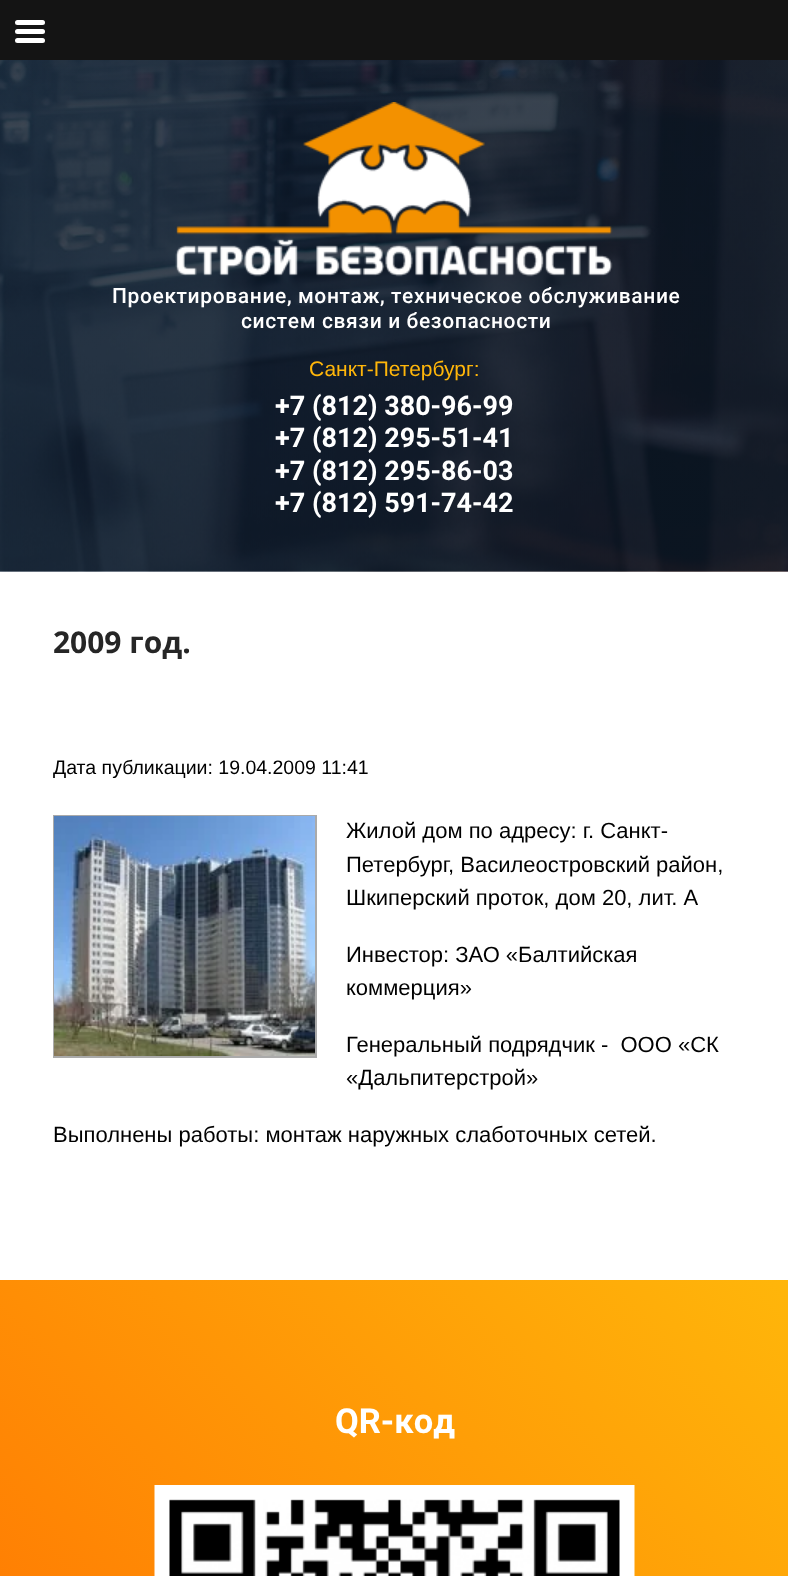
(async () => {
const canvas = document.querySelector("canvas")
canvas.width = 788
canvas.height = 1576
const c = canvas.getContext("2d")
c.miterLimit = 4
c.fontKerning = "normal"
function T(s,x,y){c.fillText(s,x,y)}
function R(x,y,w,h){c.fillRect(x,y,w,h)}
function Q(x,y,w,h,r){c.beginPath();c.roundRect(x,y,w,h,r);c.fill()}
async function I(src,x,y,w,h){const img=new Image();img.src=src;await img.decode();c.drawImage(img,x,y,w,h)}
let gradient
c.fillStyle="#fff"
R(0,0,788,1576)
c.fillStyle="#141414"
R(0,0,788,60)
c.fillStyle="#fff"
Q(15,20,30,5,2.5)
Q(15,29,30,5,2.5)
Q(15,38,30,5,2.5)
await I("1.png",0,60,788,512)
await I("2.png",175,102,438,175)
c.letterSpacing="0.6px"
c.font="500 21px Roboto"
T("Проектирование, монтаж, техническое обслуживание",112,303)
T("систем связи и безопасности",241,328)
c.letterSpacing="0px"
c.font="21px Liberation Sans"
c.fillStyle="#ffb60a"
T("Санкт-Петербург:",309,376)
c.font="bold 27px Roboto"
c.fillStyle="#fff"
T("+7 (812) 380-96-99",275,415)
T("+7 (812) 295-51-41",275,447)
T("+7 (812) 295-86-03",275,480)
T("+7 (812) 591-74-42",275,512)
c.font="bold 30px Open Sans"
c.fillStyle="#262626"
T("2009 год.",53,653)
c.font="19.5px Liberation Sans"
c.fillStyle="#000"
T("Дата публикации: 19.04.2009 11:41",53,774)
c.strokeStyle="#aaa"
c.lineWidth=2
c.strokeRect(54,816,262,241)
await I("3.png",54,816,261,240)
c.font="22px Liberation Sans"
T("Жилой дом по адресу: г. Санкт-",346,838)
T("Петербург, Василеостровский район,",346,872)
T("Шкиперский проток, дом 20, лит. А",346,905)
T("Инвестор: ЗАО «Балтийская",346,962)
T("коммерция»",346,995)
T("Генеральный подрядчик -  ООО «СК",346,1052)
T("«Дальпитерстрой»",346,1085)
T("Выполнены работы: монтаж наружных слаботочных сетей.",53,1142)
gradient = c.createLinearGradient(-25,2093,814,1306)
gradient.addColorStop(0,"#f60")
gradient.addColorStop(1,"#ffb60a")
c.fillStyle = gradient
R(0,1280,788,296)
c.font="bold 34.5px Roboto"
c.fillStyle="#fff"
T("QR-код",335,1433)
await I("4.png",154,1485,481,91)
})()
